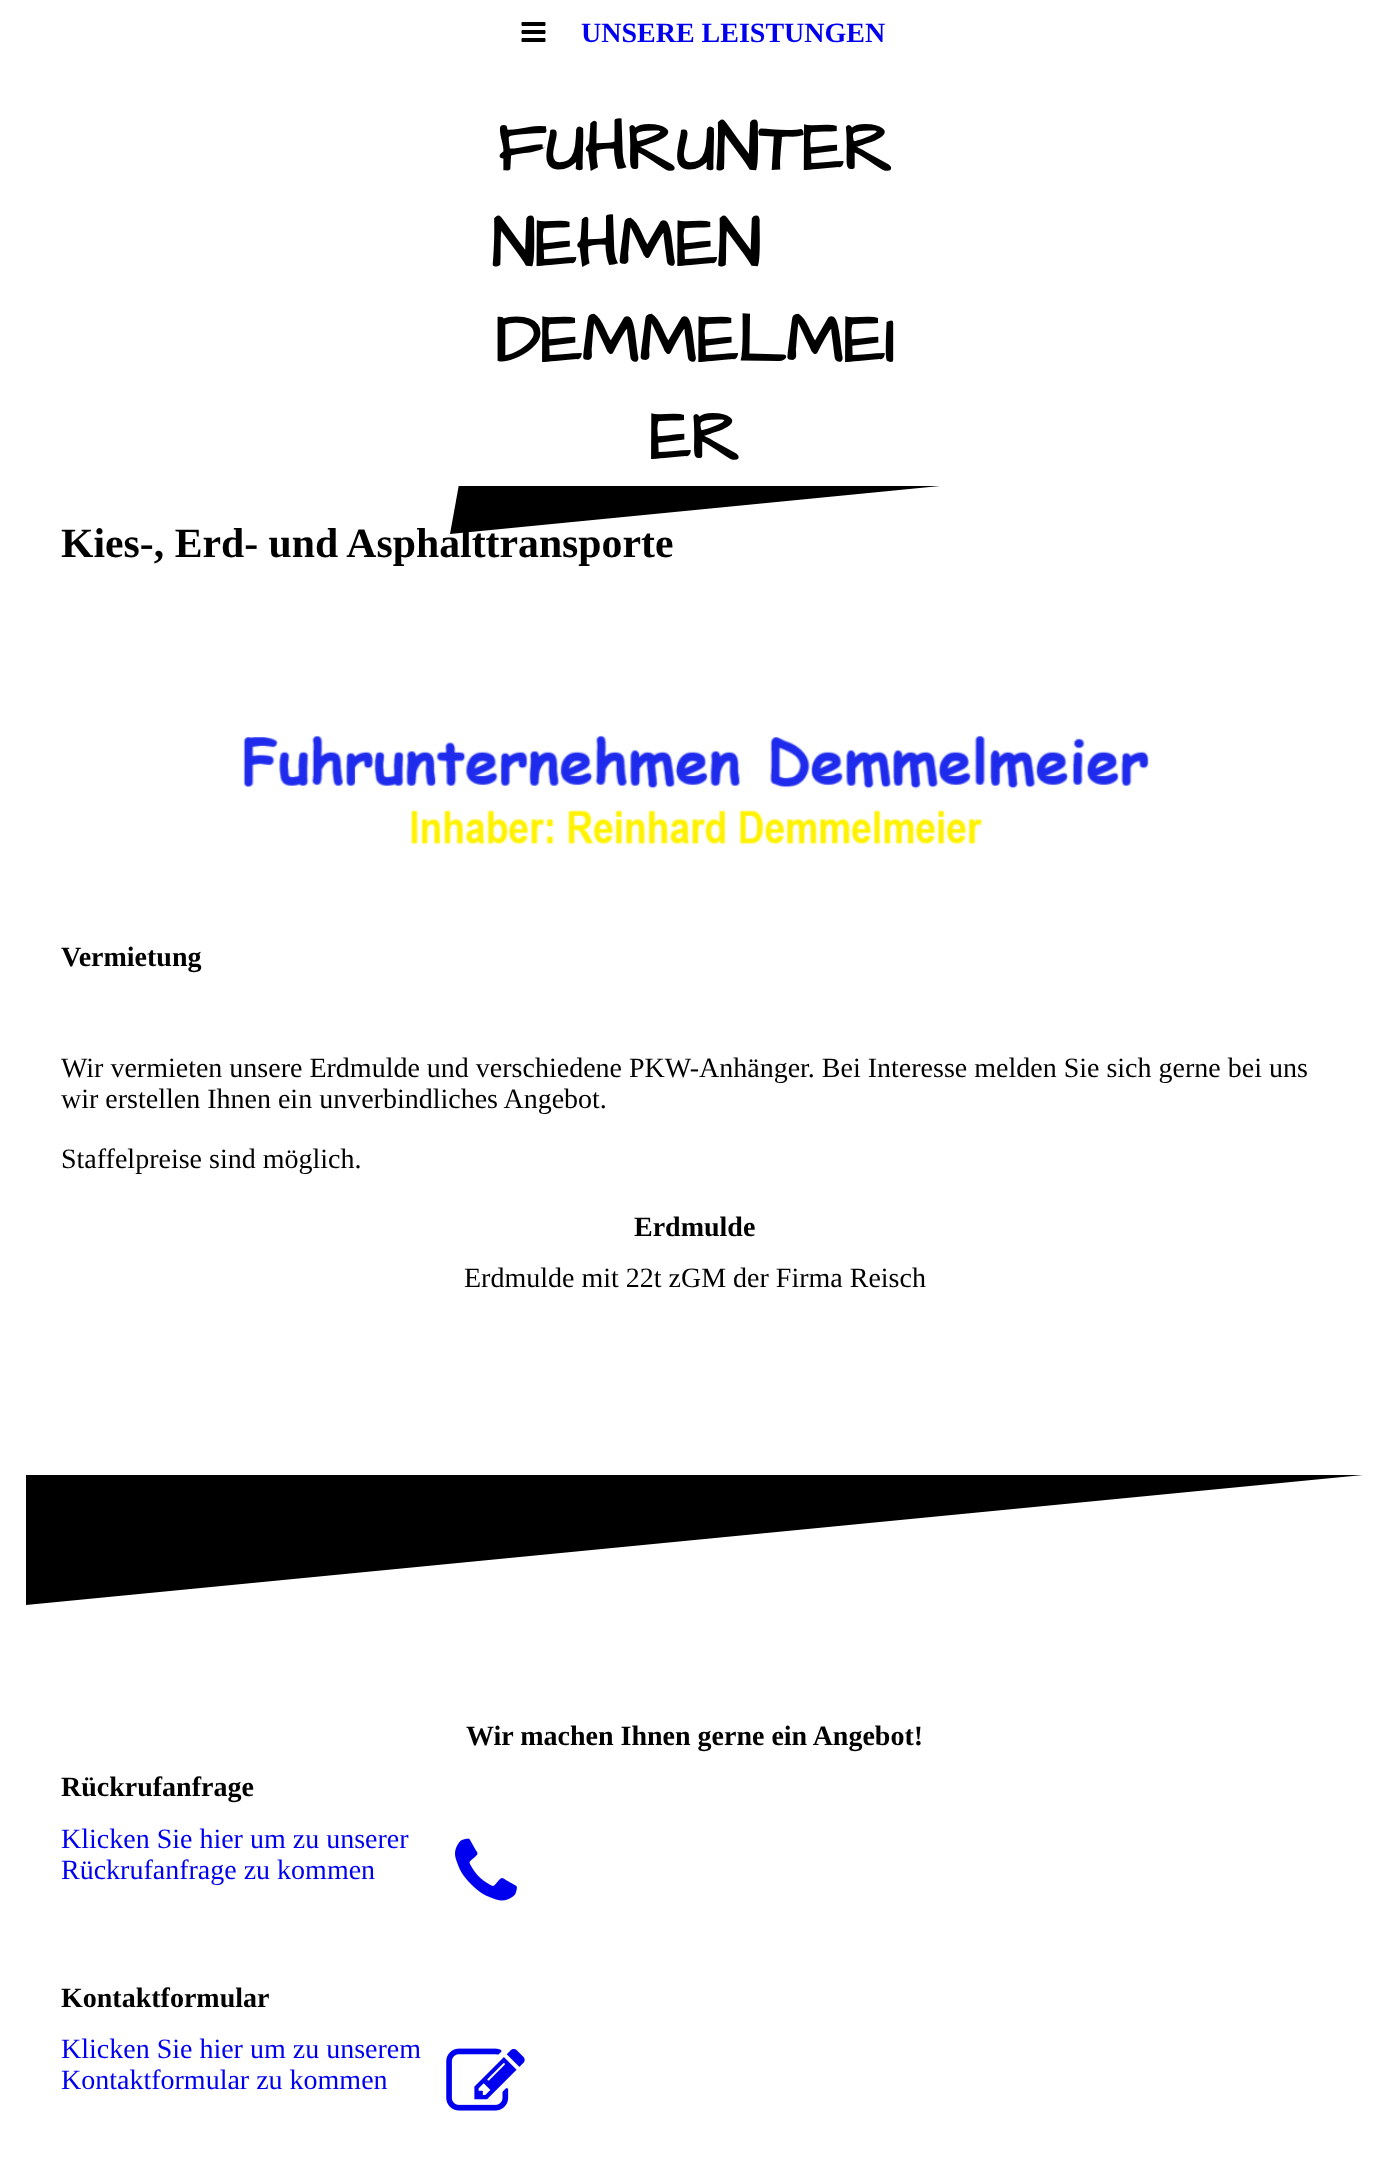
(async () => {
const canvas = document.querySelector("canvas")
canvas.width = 1388
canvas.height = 2183
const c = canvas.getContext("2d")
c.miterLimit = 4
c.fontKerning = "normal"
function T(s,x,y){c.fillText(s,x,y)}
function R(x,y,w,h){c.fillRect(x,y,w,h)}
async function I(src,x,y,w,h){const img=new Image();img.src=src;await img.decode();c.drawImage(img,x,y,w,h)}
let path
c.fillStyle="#fff"
R(0,0,1388,2183)
await I("1.png",521,22,25,20)
c.font="bold 28px Liberation Serif"
c.fillStyle="#00e"
T("UNSERE LEISTUNGEN",581,42)
c.fillStyle="#000"
path = new Path2D("M450 534v-48h490z")
c.fill(path)
c.font="bold 41.75px Liberation Serif"
T("Kies-, Erd- und Asphalttransporte",61,557)
c.fillStyle="#fff"
path = new Path2D("M450 534v-432h78z")
c.fill(path)
c.font="bold 69.5px Architects Daughter"
c.fillStyle="#000"
T("FUHRUNTER",497,170)
T("NEHMEN",491,266)
T("DEMMELMEI",495,362)
T("ER",649,459)
await I("2.png",243,735,906,109)
c.font="bold 28px Liberation Serif"
T("Vermietung",61,966)
c.font="28px Liberation Serif"
T("Wir vermieten unsere Erdmulde und verschiedene PKW-Anhänger. Bei Interesse melden Sie sich gerne bei uns",61,1077)
T("wir erstellen Ihnen ein unverbindliches Angebot.",61,1108)
T("Staffelpreise sind möglich.",61,1168)
c.font="bold 28px Liberation Serif"
T("Erdmulde",634,1236)
c.font="28px Liberation Serif"
T("Erdmulde mit 22t zGM der Firma Reisch",464,1287)
path = new Path2D("M26 1605v-130h1337z")
c.fill(path)
c.font="bold 28px Liberation Serif"
T("Wir machen Ihnen gerne ein Angebot!",466,1745)
T("Rückrufanfrage",61,1796)
c.font="28px Liberation Serif"
c.fillStyle="#00e"
T("Klicken Sie hier um zu unserer",61,1848)
T("Rückrufanfrage zu kommen",61,1879)
await I("3.png",455,1838,62,63)
c.font="bold 28px Liberation Serif"
c.fillStyle="#000"
T("Kontaktformular",61,2007)
c.font="28px Liberation Serif"
c.fillStyle="#00e"
T("Klicken Sie hier um zu unserem",61,2058)
T("Kontaktformular zu kommen",61,2089)
await I("4.png",446,2048,79,63)
})()
